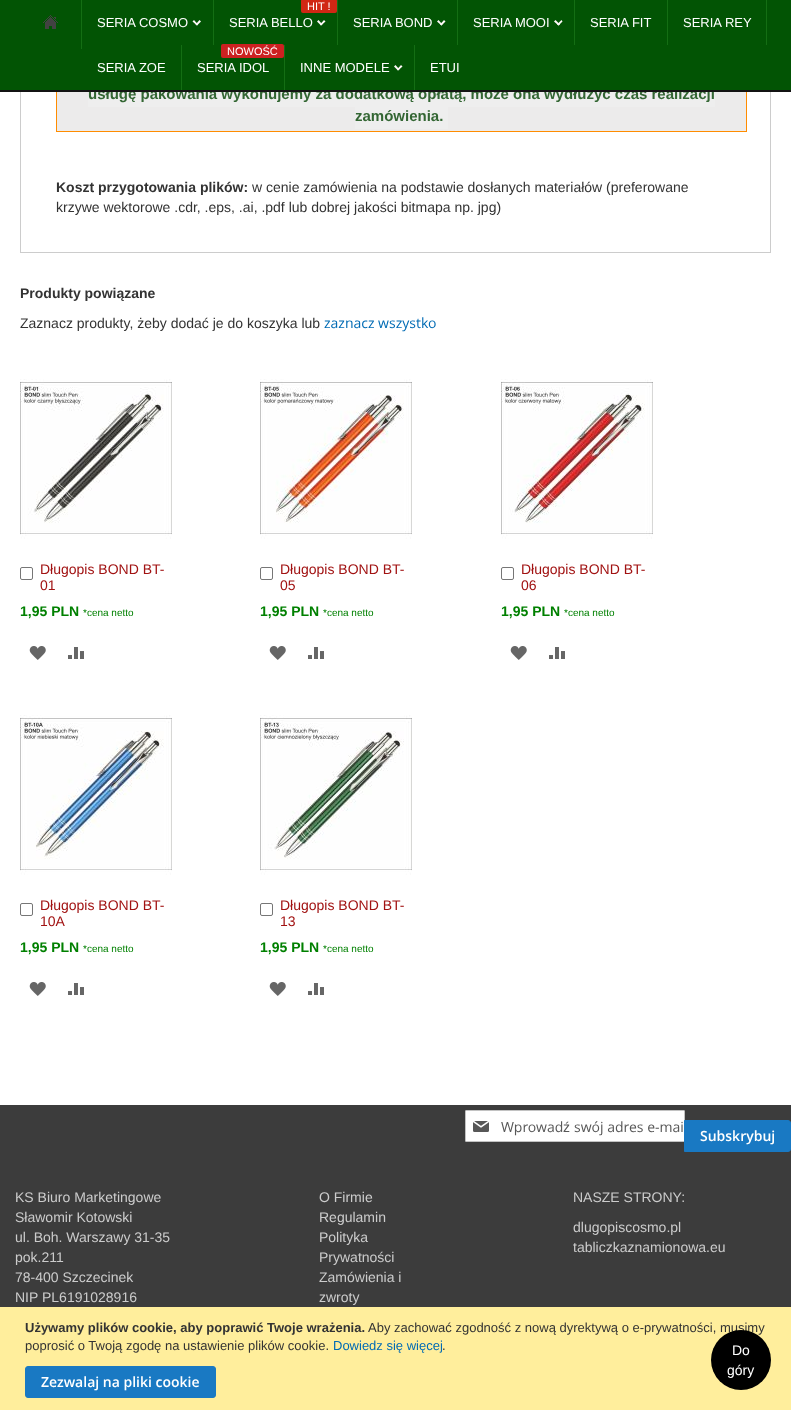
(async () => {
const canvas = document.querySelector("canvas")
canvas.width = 791
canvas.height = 1410
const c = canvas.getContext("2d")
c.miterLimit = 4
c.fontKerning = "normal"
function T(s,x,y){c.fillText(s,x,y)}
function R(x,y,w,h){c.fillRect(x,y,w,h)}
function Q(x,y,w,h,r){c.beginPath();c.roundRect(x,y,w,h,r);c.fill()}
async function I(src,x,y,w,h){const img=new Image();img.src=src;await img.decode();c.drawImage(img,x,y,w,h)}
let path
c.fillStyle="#fff"
R(0,0,791,1410)
c.strokeStyle="#ccc"
c.strokeRect(20.5,-.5,750,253)
c.fillStyle="#ecebeb"
R(57,92,689,39)
c.strokeStyle="#ff8c00"
c.strokeRect(56.5,35.5,690,96)
c.fillStyle="#eee"
R(88,92,627,15)
c.font="bold 15px Liberation Sans"
c.fillStyle="#363"
T("usługę pakowania wykonujemy za dodatkową opłatą, może ona wydłużyć czas realizacji",88,99)
c.fillStyle="#025404"
R(0,0,791,90)
c.fillStyle="#131313"
R(0,90,791,2)
c.fillStyle="#146e14"
R(81,0,1,49)
await I("1.png",43,15,15,14)
R(213,0,1,45)
c.font="13px Liberation Sans"
c.fillStyle="#fff"
T("SERIA COSMO",97,27)
c.fillStyle="#fff9f9"
path = new Path2D("M199.5 20l1.5 1.5l-4 4l-1.5-1z")
c.fill(path)
path = new Path2D("M194 20l4 4.5l-1 1l-4.5-4z")
c.fill(path)
c.fillStyle="#146e14"
R(337,0,1,45)
c.fillStyle="#d12714"
Q(301,-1,36,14,2)
c.font="11px Liberation Sans"
c.fillStyle="#fff"
T("HIT !",307,10)
c.font="13px Liberation Sans"
T("SERIA BELLO",229,27)
c.fillStyle="#fff9f9"
path = new Path2D("M324 20l1.5 1.5l-4.5 4l-1-1z")
c.fill(path)
path = new Path2D("M318.5 20l4 4.5l-1.5 1l-4-4z")
c.fill(path)
c.fillStyle="#146e14"
R(457,0,1,45)
c.fillStyle="#fff"
T("SERIA BOND",353,27)
c.fillStyle="#fff9f9"
path = new Path2D("M444 20l1.5 1.5l-4 4l-1.5-1z")
c.fill(path)
path = new Path2D("M438.5 20l4 4.5l-1 1l-4.5-4z")
c.fill(path)
c.fillStyle="#146e14"
R(574,0,1,45)
c.fillStyle="#fff"
T("SERIA MOOI",473,27)
c.fillStyle="#fff9f9"
path = new Path2D("M561.5 20l1 1.5l-4 4l-1.5-1z")
c.fill(path)
path = new Path2D("M555.5 20l4.5 4.5l-1.5 1l-4.5-4z")
c.fill(path)
c.fillStyle="#146e14"
R(667,0,1,45)
c.fillStyle="#fff"
T("SERIA FIT",590,27)
c.fillStyle="#146e14"
R(766,0,1,45)
c.fillStyle="#fff"
T("SERIA REY",683,27)
c.fillStyle="#146e14"
R(181,45,1,45)
c.fillStyle="#fff"
T("SERIA ZOE",97,72)
c.fillStyle="#146e14"
R(284,45,1,45)
c.fillStyle="#cc2121"
Q(221,44,63,14,2)
c.font="11px Liberation Sans"
c.fillStyle="#fff"
T("NOWOŚĆ",227,55)
c.font="13px Liberation Sans"
T("SERIA IDOL",197,72)
c.fillStyle="#146e14"
R(414,45,1,45)
c.fillStyle="#fff"
T("INNE MODELE",300,72)
c.fillStyle="#fff9f9"
path = new Path2D("M401 65l1.5 1.5l-4.5 4l-1-1z")
c.fill(path)
path = new Path2D("M395.5 65l4 4.5l-1.5 1l-4-4z")
c.fill(path)
c.fillStyle="#fff"
T("ETUI",430,72)
c.fillStyle="#eee"
R(355,107,93,22)
c.font="bold 15px Liberation Sans"
c.fillStyle="#363"
T("zamówienia.",355,121)
c.font="bold 14px Liberation Sans"
c.fillStyle="#333"
T("Koszt przygotowania plików:",56,192)
c.font="14px Liberation Sans"
T("w cenie zamówienia na podstawie dosłanych materiałów (preferowane",252,192)
T("krzywe wektorowe .cdr, .eps, .ai, .pdf lub dobrej jakości bitmapa np. jpg)",56,212)
c.font="bold 14px Liberation Sans"
T("Produkty powiązane",20,298)
c.font="14px Liberation Sans"
T("Zaznacz produkty, żeby dodać je do koszyka lub",20,328)
c.font="14px Open Sans"
c.fillStyle="#006bb4"
T("zaznacz wszystko",324,328)
await I("2.png",20,379,152,160)
c.beginPath()
c.roundRect(20.5,567.5,12,12,1.5)
c.strokeStyle="#767676"
c.stroke()
c.font="14px Liberation Sans"
c.fillStyle="#a11212"
T("Długopis BOND BT-",40,574)
T("01",40,590)
c.font="bold 14px Liberation Sans"
c.fillStyle="#008000"
T("1,95 PLN",20,616)
c.font="10px Liberation Sans"
T("*cena netto",83,616)
await I("3.png",29,646,17,14)
await I("4.png",68,647,16,12)
await I("5.png",260,379,152,160)
c.beginPath()
c.roundRect(260.5,567.5,12,12,1.5)
c.stroke()
c.font="14px Liberation Sans"
c.fillStyle="#a11212"
T("Długopis BOND BT-",280,574)
T("05",280,590)
c.font="bold 14px Liberation Sans"
c.fillStyle="#008000"
T("1,95 PLN",260,616)
c.font="10px Liberation Sans"
T("*cena netto",323,616)
await I("3.png",269,646,17,14)
await I("4.png",308,647,16,12)
await I("6.png",501,379,152,160)
c.beginPath()
c.roundRect(501.5,567.5,12,12,1.5)
c.stroke()
c.font="14px Liberation Sans"
c.fillStyle="#a11212"
T("Długopis BOND BT-",521,574)
T("06",521,590)
c.font="bold 14px Liberation Sans"
c.fillStyle="#008000"
T("1,95 PLN",501,616)
c.font="10px Liberation Sans"
T("*cena netto",564,616)
await I("3.png",510,646,17,14)
await I("4.png",549,647,16,12)
await I("7.png",20,715,152,160)
c.beginPath()
c.roundRect(20.5,903.5,12,12,1.5)
c.stroke()
c.font="14px Liberation Sans"
c.fillStyle="#a11212"
T("Długopis BOND BT-",40,910)
T("10A",40,926)
c.font="bold 14px Liberation Sans"
c.fillStyle="#008000"
T("1,95 PLN",20,952)
c.font="10px Liberation Sans"
T("*cena netto",83,952)
await I("3.png",29,982,17,14)
await I("4.png",68,983,16,12)
await I("8.png",260,715,152,160)
c.beginPath()
c.roundRect(260.5,903.5,12,12,1.5)
c.stroke()
c.font="14px Liberation Sans"
c.fillStyle="#a11212"
T("Długopis BOND BT-",280,910)
T("13",280,926)
c.font="bold 14px Liberation Sans"
c.fillStyle="#008000"
T("1,95 PLN",260,952)
c.font="10px Liberation Sans"
T("*cena netto",323,952)
await I("3.png",269,982,17,14)
await I("4.png",308,983,16,12)
c.fillStyle="#3c3c3c"
R(0,1105,791,202)
c.fillStyle="#fff"
c.beginPath()
c.roundRect(465.5,1110.5,219,31,.5)
c.fill()
c.strokeStyle="#c2c2c2"
c.stroke()
await I("9.png",473,1121,16,11)
c.font="14px Open Sans"
c.fillStyle="#575757"
T("Wprowad",501,1132)
c.font="14px Liberation Sans"
T("ź",563,1132)
c.font="14px Open Sans"
T("swój adres e-mai",574,1132)
c.fillStyle="#1979c3"
c.beginPath()
c.roundRect(684.5,1120.5,106,31,[0,2.5,2.5,0])
c.fill()
c.strokeStyle="#1979c3"
c.stroke()
c.font="600 14px Open Sans"
c.fillStyle="#fff"
T("Subskrybuj",700,1141)
c.font="14px Liberation Sans"
c.fillStyle="#ccc"
T("KS Biuro Marketingowe",15,1202)
T("Sławomir Kotowski",15,1222)
T("ul. Boh. Warszawy 31-35",15,1242)
T("pok.211",15,1262)
T("78-400 Szczecinek",15,1282)
T("NIP PL6191028916",15,1302)
T("O Firmie",319,1202)
T("Regulamin",319,1222)
T("Polityka",319,1242)
T("Prywatności",319,1262)
T("Zamówienia i",319,1282)
T("zwroty",319,1302)
T("NASZE STRONY:",573,1202)
T("dlugopiscosmo.pl",573,1232)
T("tabliczkaznamionowa.eu",573,1252)
c.fillStyle="#ffee9c"
R(0,1307,791,103)
c.font="bold 13px Liberation Sans"
c.fillStyle="#333"
T("Używamy plików cookie, aby poprawić Twoje wrażenia.",25,1332)
c.font="13px Liberation Sans"
T("Aby zachować zgodność z nową dyrektywą o e-prywatności, musimy",368,1332)
T("poprosić o Twoją zgodę na ustawienie plików cookie.",25,1350)
c.fillStyle="#006bb4"
T("Dowiedz się więcej",333,1350)
c.fillStyle="#333"
T(".",442,1350)
c.fillStyle="#1979c3"
c.beginPath()
c.roundRect(25.5,1366.5,190,31,2.5)
c.fill()
c.stroke()
c.font="600 14px Open Sans"
c.fillStyle="#fff"
T("Zezwalaj na pliki cookie",41,1387)
c.fillStyle="#000"
c.beginPath()
c.arc(741,1360,30,0,7)
c.fill()
c.font="14px Liberation Sans"
c.fillStyle="#fff"
T("Do",732,1355)
T("góry",727,1375)
})()
